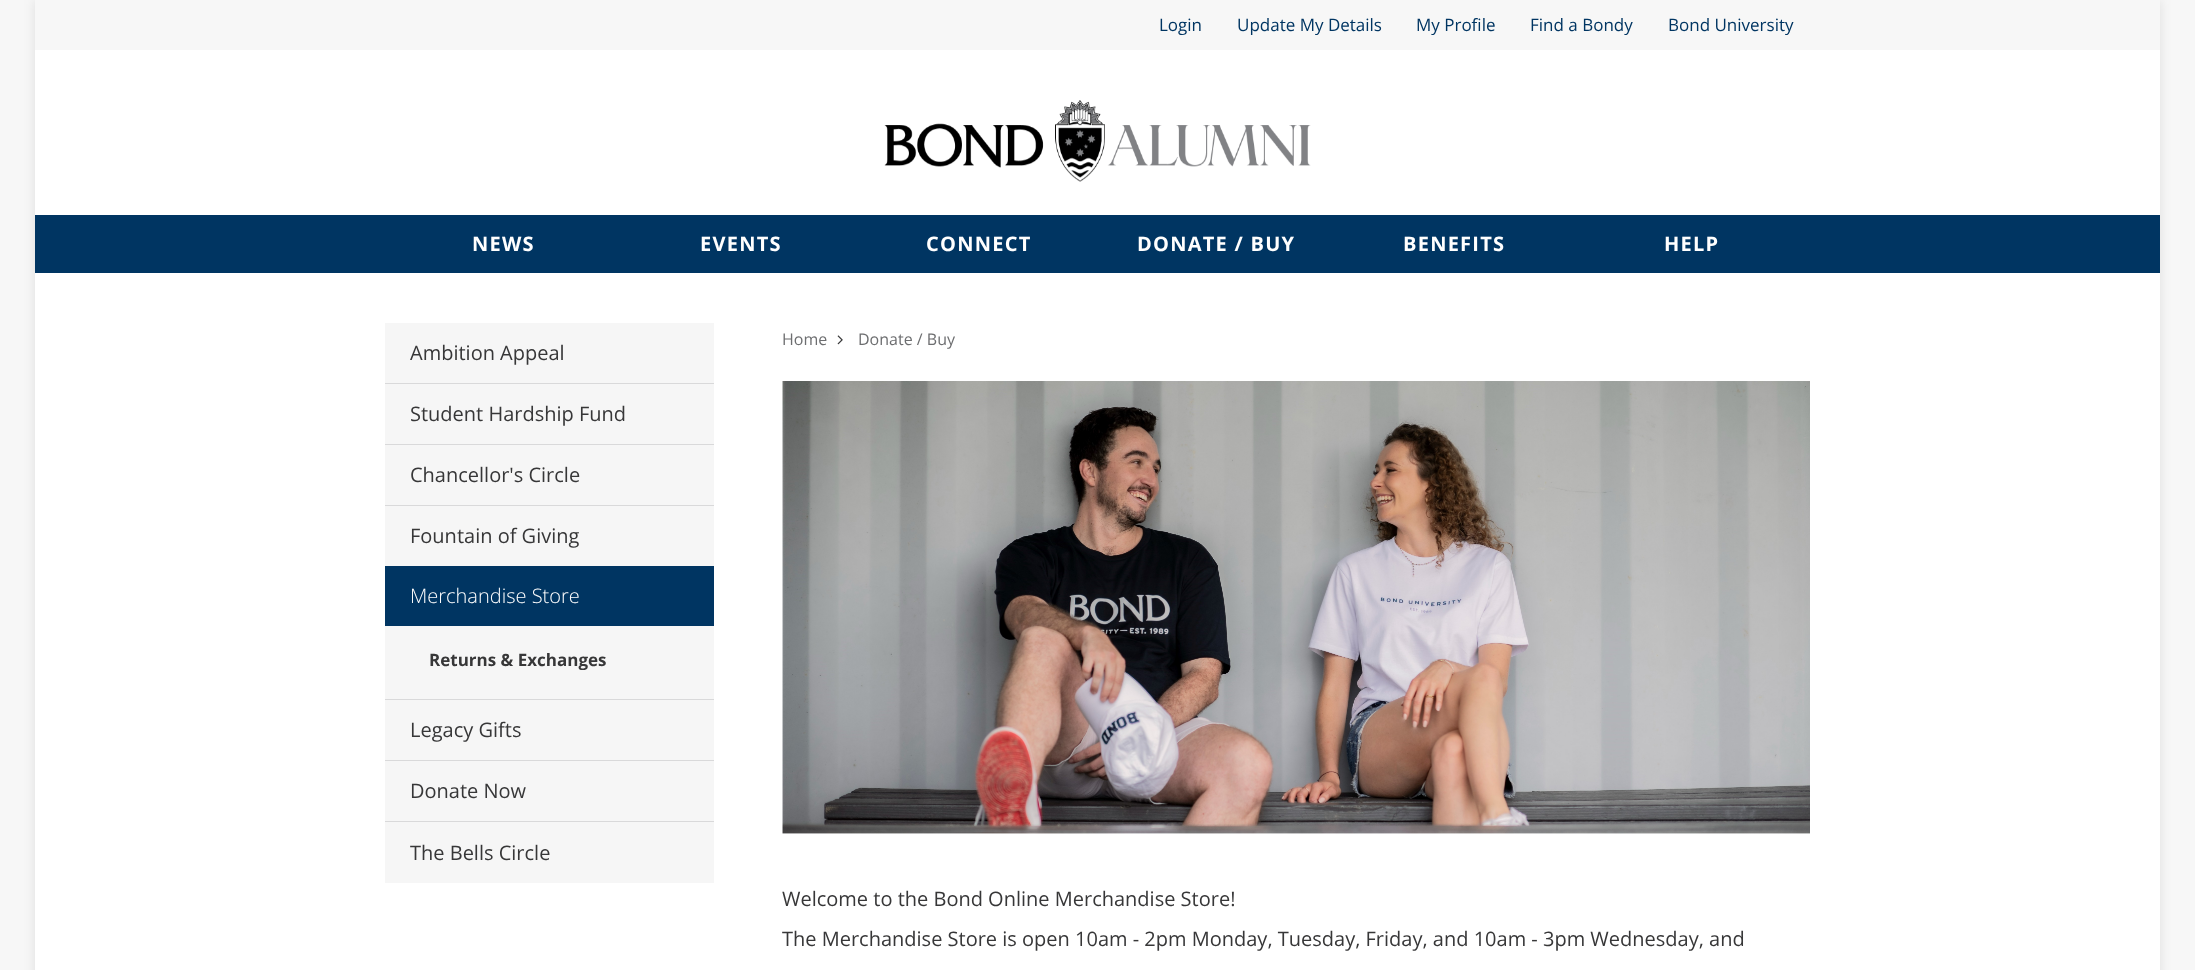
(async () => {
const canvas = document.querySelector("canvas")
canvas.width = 2195
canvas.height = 970
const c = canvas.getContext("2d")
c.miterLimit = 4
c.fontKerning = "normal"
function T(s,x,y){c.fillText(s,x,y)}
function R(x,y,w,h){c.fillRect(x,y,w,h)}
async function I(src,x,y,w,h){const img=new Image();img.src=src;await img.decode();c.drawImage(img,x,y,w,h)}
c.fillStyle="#f7f7f7"
R(0,0,2195,970)
c.fillStyle="#0000001a"
c.filter="blur(6px)"
c.beginPath()
c.rect(35,0,2125,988)
c.fill()
c.filter="none"
c.fillStyle="#fff"
R(35,50,2125,920)
c.fillStyle="#f7f7f7"
R(35,0,2125,50)
c.font="17px Open Sans"
c.fillStyle="#003562"
T("Login",1159,31)
T("Update My Details",1237,31)
T("My Profile",1416,31)
T("Find a Bondy",1530,31)
T("Bond University",1668,31)
await I("1.png",884,100,427,82)
R(35,215,2125,58)
c.letterSpacing="1.25px"
c.font="bold 20px Open Sans"
c.fillStyle="#fff"
T("NEWS",472,251)
T("EVENTS",700,251)
T("CONNECT",926,251)
T("DONATE / BUY",1137,251)
T("BENEFITS",1403,251)
T("HELP",1664,251)
c.fillStyle="#f6f6f6"
R(385,323,329,560)
c.letterSpacing="0px"
c.font="20px Open Sans"
c.fillStyle="#373738"
T("Ambition Appeal",410,360)
c.fillStyle="#d9d9da"
R(385,383,329,1)
c.fillStyle="#373738"
T("Student Hardship Fund",410,421)
c.fillStyle="#d9d9da"
R(385,444,329,1)
c.fillStyle="#373738"
T("Chancellor's Circle",410,482)
c.fillStyle="#d9d9da"
R(385,505,329,1)
c.fillStyle="#373738"
T("Fountain of Giving",410,543)
c.fillStyle="#003562"
R(385,566,329,60)
c.font="300 20px Open Sans"
c.fillStyle="#fff"
T("Merchandise Store",410,603)
c.font="bold 17px Open Sans"
c.fillStyle="#373738"
T("Returns & Exchanges",429,666)
c.fillStyle="#d9d9da"
R(385,699,329,1)
c.font="20px Open Sans"
c.fillStyle="#373738"
T("Legacy Gifts",410,737)
c.fillStyle="#d9d9da"
R(385,760,329,1)
c.fillStyle="#373738"
T("Donate Now",410,798)
c.fillStyle="#d9d9da"
R(385,821,329,1)
c.fillStyle="#373738"
T("The Bells Circle",410,860)
c.font="16px Open Sans"
c.fillStyle="#6d6e70"
T("Home",782,345)
await I("2.png",837,335,6,10)
T("Donate / Buy",858,345)
await I("3.png",782,381,1028,453)
c.font="20px Open Sans"
c.fillStyle="#373738"
T("Welcome to the Bond Online Merchandise Store!",782,906)
T("The Merchandise Store is open 10am - 2pm Monday, Tuesday, Friday, and 10am - 3pm Wednesday, and",782,946)
})()
